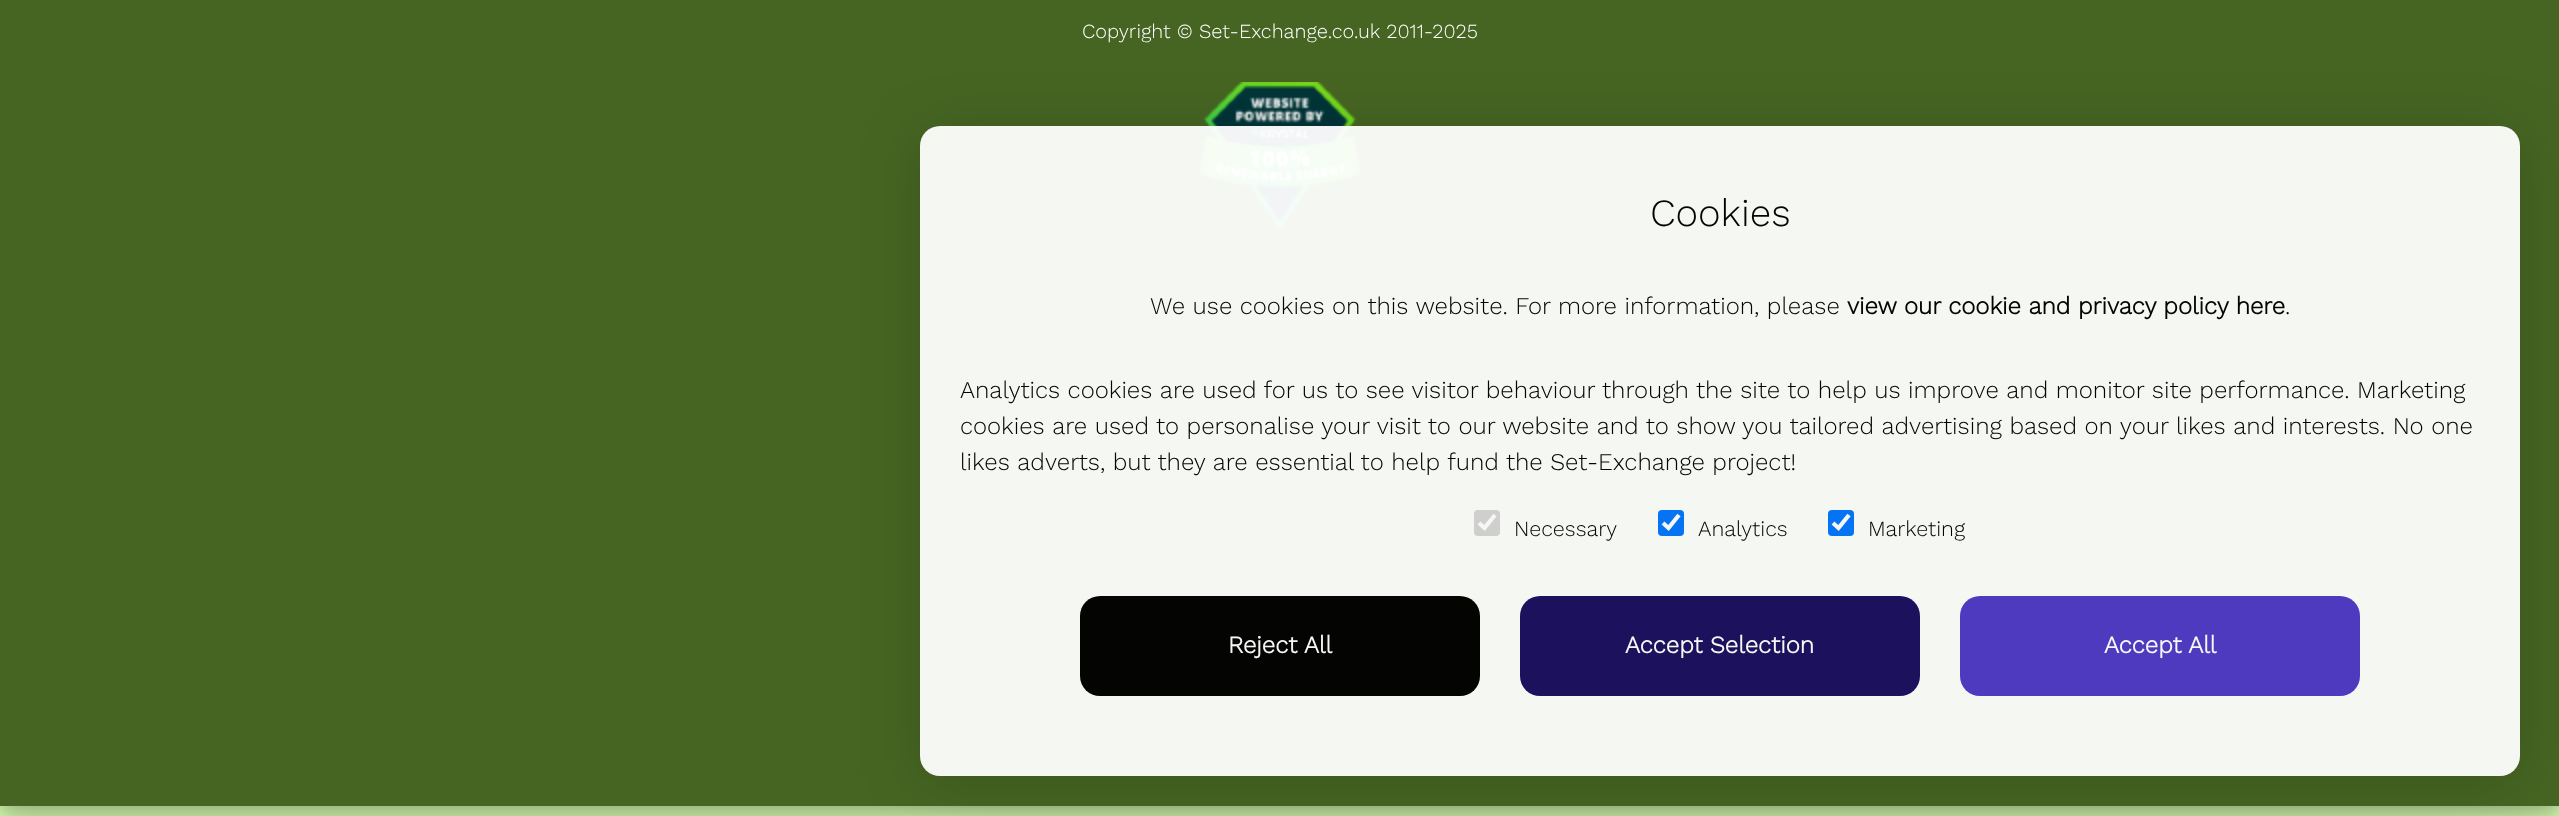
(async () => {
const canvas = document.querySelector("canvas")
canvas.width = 2559
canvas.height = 816
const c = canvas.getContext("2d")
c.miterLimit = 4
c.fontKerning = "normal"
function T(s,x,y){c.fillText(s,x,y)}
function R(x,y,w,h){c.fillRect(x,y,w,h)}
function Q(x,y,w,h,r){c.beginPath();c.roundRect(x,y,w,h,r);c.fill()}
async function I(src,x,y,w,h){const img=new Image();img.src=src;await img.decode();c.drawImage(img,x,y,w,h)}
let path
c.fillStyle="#d9ffb3"
R(0,0,2559,816)
c.fillStyle="#00000030"
c.filter="blur(20px)"
c.beginPath()
c.rect(0,-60,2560,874)
c.fill()
c.filter="none"
c.fillStyle="#00000033"
c.filter="blur(10px)"
c.beginPath()
c.rect(0,-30,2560,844)
c.fill()
c.filter="none"
c.fillStyle="#466522"
R(0,0,2559,806)
c.font="300 20px Work Sans"
c.fillStyle="#fff"
T("Copyright © Set-Exchange.co.uk 2011-2025",1082,38)
await I("1.png",1200,82,160,148)
c.save()
path = new Path2D("M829 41h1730v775h-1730zm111 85h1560c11 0 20 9 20 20v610c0 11-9 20-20 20h-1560c-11 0-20-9-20-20v-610c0-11 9-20 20-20z")
c.clip(path,"evenodd")
c.fillStyle="#00000026"
c.filter="blur(30px)"
c.beginPath()
c.roundRect(920,132,1600,650,20)
c.fill()
c.filter="none"
c.restore()
c.fillStyle="#fffffff2"
Q(920,126,1600,650,20)
c.font="300 38.5px Work Sans"
c.fillStyle="#040502"
T("Cookies",1650,226)
c.font="300 24px Work Sans"
T("We use cookies on this website. For more information, please",1150,314)
c.font="bold 24px Work Sans"
T("view our cookie and privacy policy here",1847,314)
c.font="300 24px Work Sans"
T(".",2285,314)
T("Analytics cookies are used for us to see visitor behaviour through the site to help us improve and monitor site performance. Marketing",960,398)
T("cookies are used to personalise your visit to our website and to show you tailored advertising based on your likes and interests. No one",960,434)
T("likes adverts, but they are essential to help fund the Set-Exchange project!",960,470)
c.fillStyle="#cfd0cd"
Q(1474,510,26,26,4)
path = new Path2D("M1479 523l5.5 5l10.5-13")
c.strokeStyle="#f6f7f4"
c.lineWidth=4.2
c.stroke(path)
c.font="300 21.5px Work Sans"
c.fillStyle="#040502"
T("Necessary",1514,536)
c.fillStyle="#0474f4"
Q(1658,510,26,26,4)
path = new Path2D("M1663 523l5.5 5l10.5-13")
c.stroke(path)
c.fillStyle="#040502"
T("Analytics",1698,536)
c.fillStyle="#0474f4"
Q(1828,510,26,26,4)
path = new Path2D("M1833 523l5.5 5l10.5-13")
c.stroke(path)
c.fillStyle="#040502"
T("Marketing",1868,536)
Q(1080,596,400,100,20)
c.font="bold 24px Work Sans"
c.fillStyle="#f6f7f4"
T("Reject All",1228,653)
c.fillStyle="#1c115d"
Q(1520,596,400,100,20)
c.fillStyle="#f6f7f4"
T("Accept Selection",1625,653)
c.fillStyle="#4e3abf"
Q(1960,596,400,100,20)
c.fillStyle="#f6f7f4"
T("Accept All",2104,653)
})()
